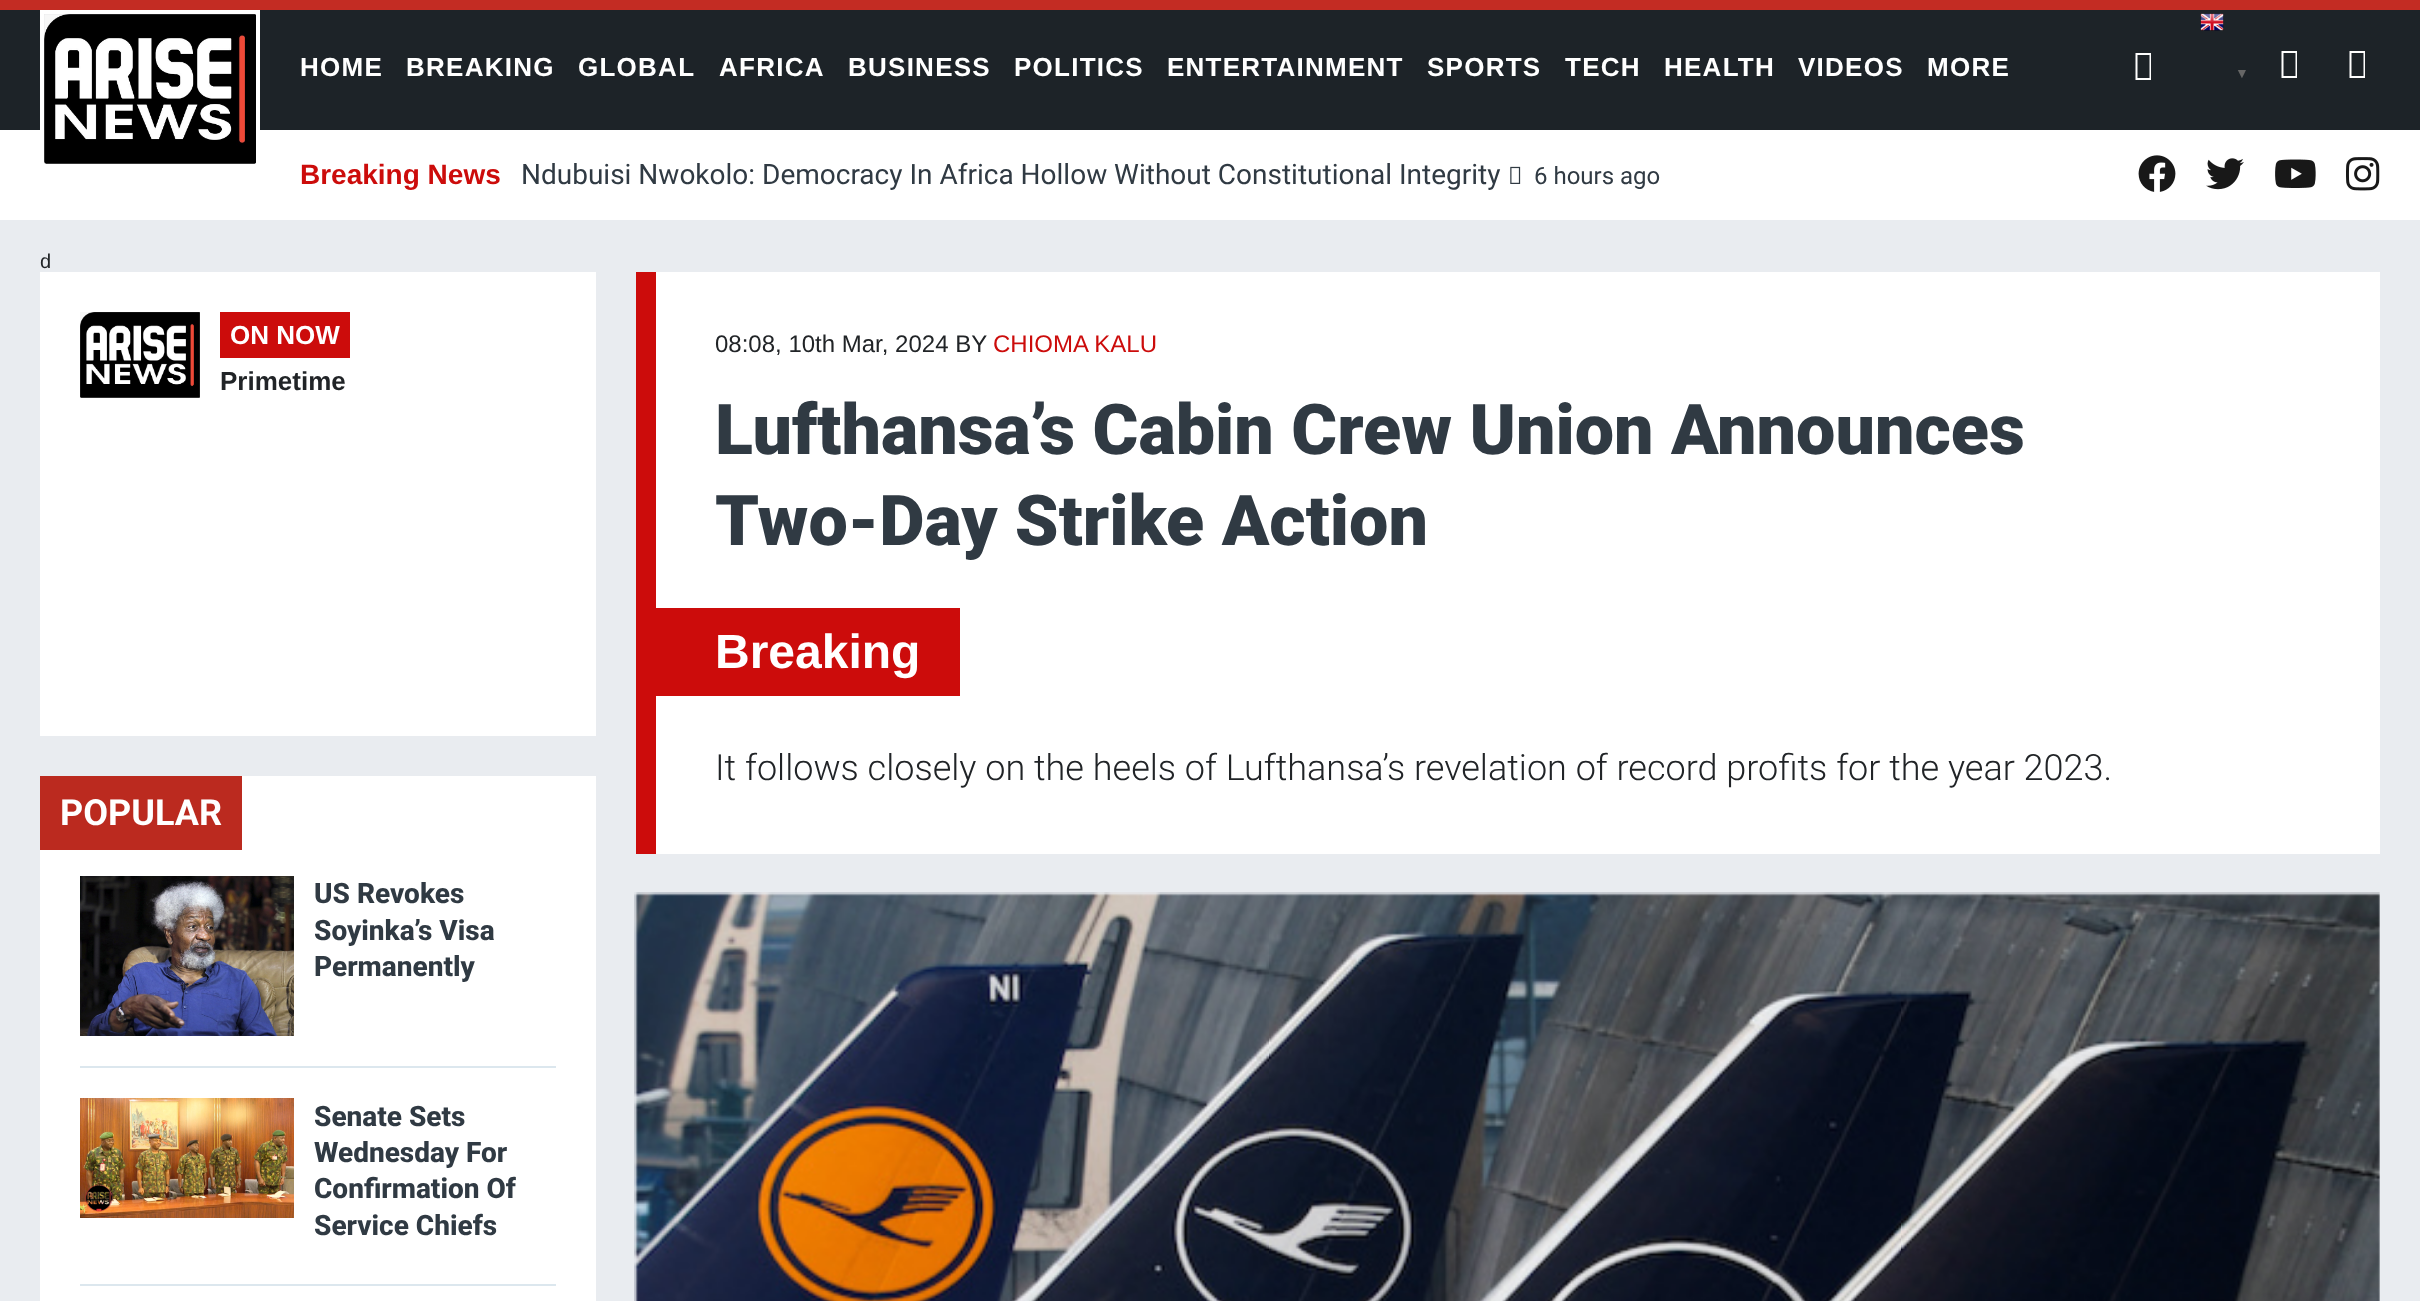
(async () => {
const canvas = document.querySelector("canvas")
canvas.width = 2420
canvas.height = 1301
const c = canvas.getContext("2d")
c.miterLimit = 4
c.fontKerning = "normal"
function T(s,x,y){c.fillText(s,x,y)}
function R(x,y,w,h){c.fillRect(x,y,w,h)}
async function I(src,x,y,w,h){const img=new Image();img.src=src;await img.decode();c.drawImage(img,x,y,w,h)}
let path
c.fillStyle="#e9ecf0"
R(0,0,2420,1301)
c.fillStyle="#c32c23"
R(0,0,2420,10)
c.fillStyle="#1d2328"
R(0,10,2420,120)
c.fillStyle="#fff"
R(0,130,2420,90)
await I("1.png",44,14,212,150)
c.strokeStyle="#fff"
c.lineWidth=4
c.strokeRect(42,12,216,174)
c.letterSpacing="1.25px"
c.font="bold 26px Liberation Sans"
T("HOME",300,76)
T("BREAKING",406,76)
T("GLOBAL",578,76)
T("AFRICA",719,76)
T("BUSINESS",848,76)
T("POLITICS",1014,76)
T("ENTERTAINMENT",1167,76)
T("SPORTS",1427,76)
T("TECH",1565,76)
T("HEALTH",1664,76)
T("VIDEOS",1798,76)
T("MORE",1927,76)
path = new Path2D("M2135.5 80v-27h15.5v27zm2-2h12v-23h-12z")
c.fill(path)
await I("2.png",2200,13,24,18)
c.letterSpacing="0px"
c.font="bold 14px Liberation Sans"
c.fillStyle="#666"
T("▼",2235,78)
c.fillStyle="#fff"
path = new Path2D("M2281.5 78v-27h15.5v27zm2-2h12v-23h-12z")
c.fill(path)
path = new Path2D("M2349.5 78v-27h15.5v27zm2-2h12v-23h-12z")
c.fill(path)
c.font="bold 28px Liberation Sans"
c.fillStyle="#cc0c0b"
T("Breaking News",300,184)
c.font="28px Roboto"
c.fillStyle="#303a43"
T("Ndubuisi Nwokolo: Democracy In Africa Hollow Without Constitutional Integrity",521,184)
await I("3.png",1510,166,11,18)
c.font="24px Roboto"
T("6 hours ago",1534,184)
await I("4.png",2138,155,38,37)
await I("5.png",2206,158,38,32)
await I("6.png",2275,159,41,29)
await I("7.png",2346,157,34,34)
c.font="20px Liberation Sans"
c.fillStyle="#212427"
T("d",40,268)
c.fillStyle="#fff"
R(40,272,556,464)
await I("8.png",80,312,120,86)
c.fillStyle="#cc0c0b"
R(220,312,130,46)
c.font="bold 26px Liberation Sans"
c.fillStyle="#fff"
T("ON NOW",230,344)
c.fillStyle="#212427"
T("Primetime",220,390)
c.fillStyle="#fff"
R(40,776,556,525)
c.fillStyle="#bb2a1f"
R(40,776,202,74)
c.font="bold 36px Roboto"
c.fillStyle="#fff"
T("POPULAR",60,825)
c.fillStyle="#dce7ee"
R(80,1066,476,2)
await I("9.png",80,876,214,160)
c.font="800 28px Roboto"
c.fillStyle="#303a43"
T("US Revokes",314,903)
T("Soyinka’s Visa",314,940)
T("Permanently",314,976)
c.fillStyle="#dce7ee"
R(80,1284,476,2)
await I("10.png",80,1098,214,120)
c.fillStyle="#303a43"
T("Senate Sets",314,1126)
T("Wednesday For",314,1162)
T("Confirmation Of",314,1198)
T("Service Chiefs",314,1235)
c.fillStyle="#fff"
R(656,272,1724,582)
c.fillStyle="#cc0c0b"
R(636,272,20,582)
c.font="24px Liberation Sans"
c.fillStyle="#212427"
T("08:08, 10th Mar, 2024 BY",715,352)
c.fillStyle="#cc0c0b"
T("CHIOMA KALU",993,352)
c.font="900 70px Roboto"
c.fillStyle="#303a43"
T("Lufthansa’s Cabin Crew Union Announces",715,454)
T("Two-Day Strike Action",715,545)
c.fillStyle="#cc0c0b"
R(656,608,304,88)
c.font="bold 48px Liberation Sans"
c.fillStyle="#fff"
T("Breaking",715,668)
c.font="300 36px Roboto"
c.fillStyle="#212427"
T("It follows closely on the heels of Lufthansa’s revelation of record profits for the year 2023.",715,780)
await I("11.png",634,892,1746,409)
})()
